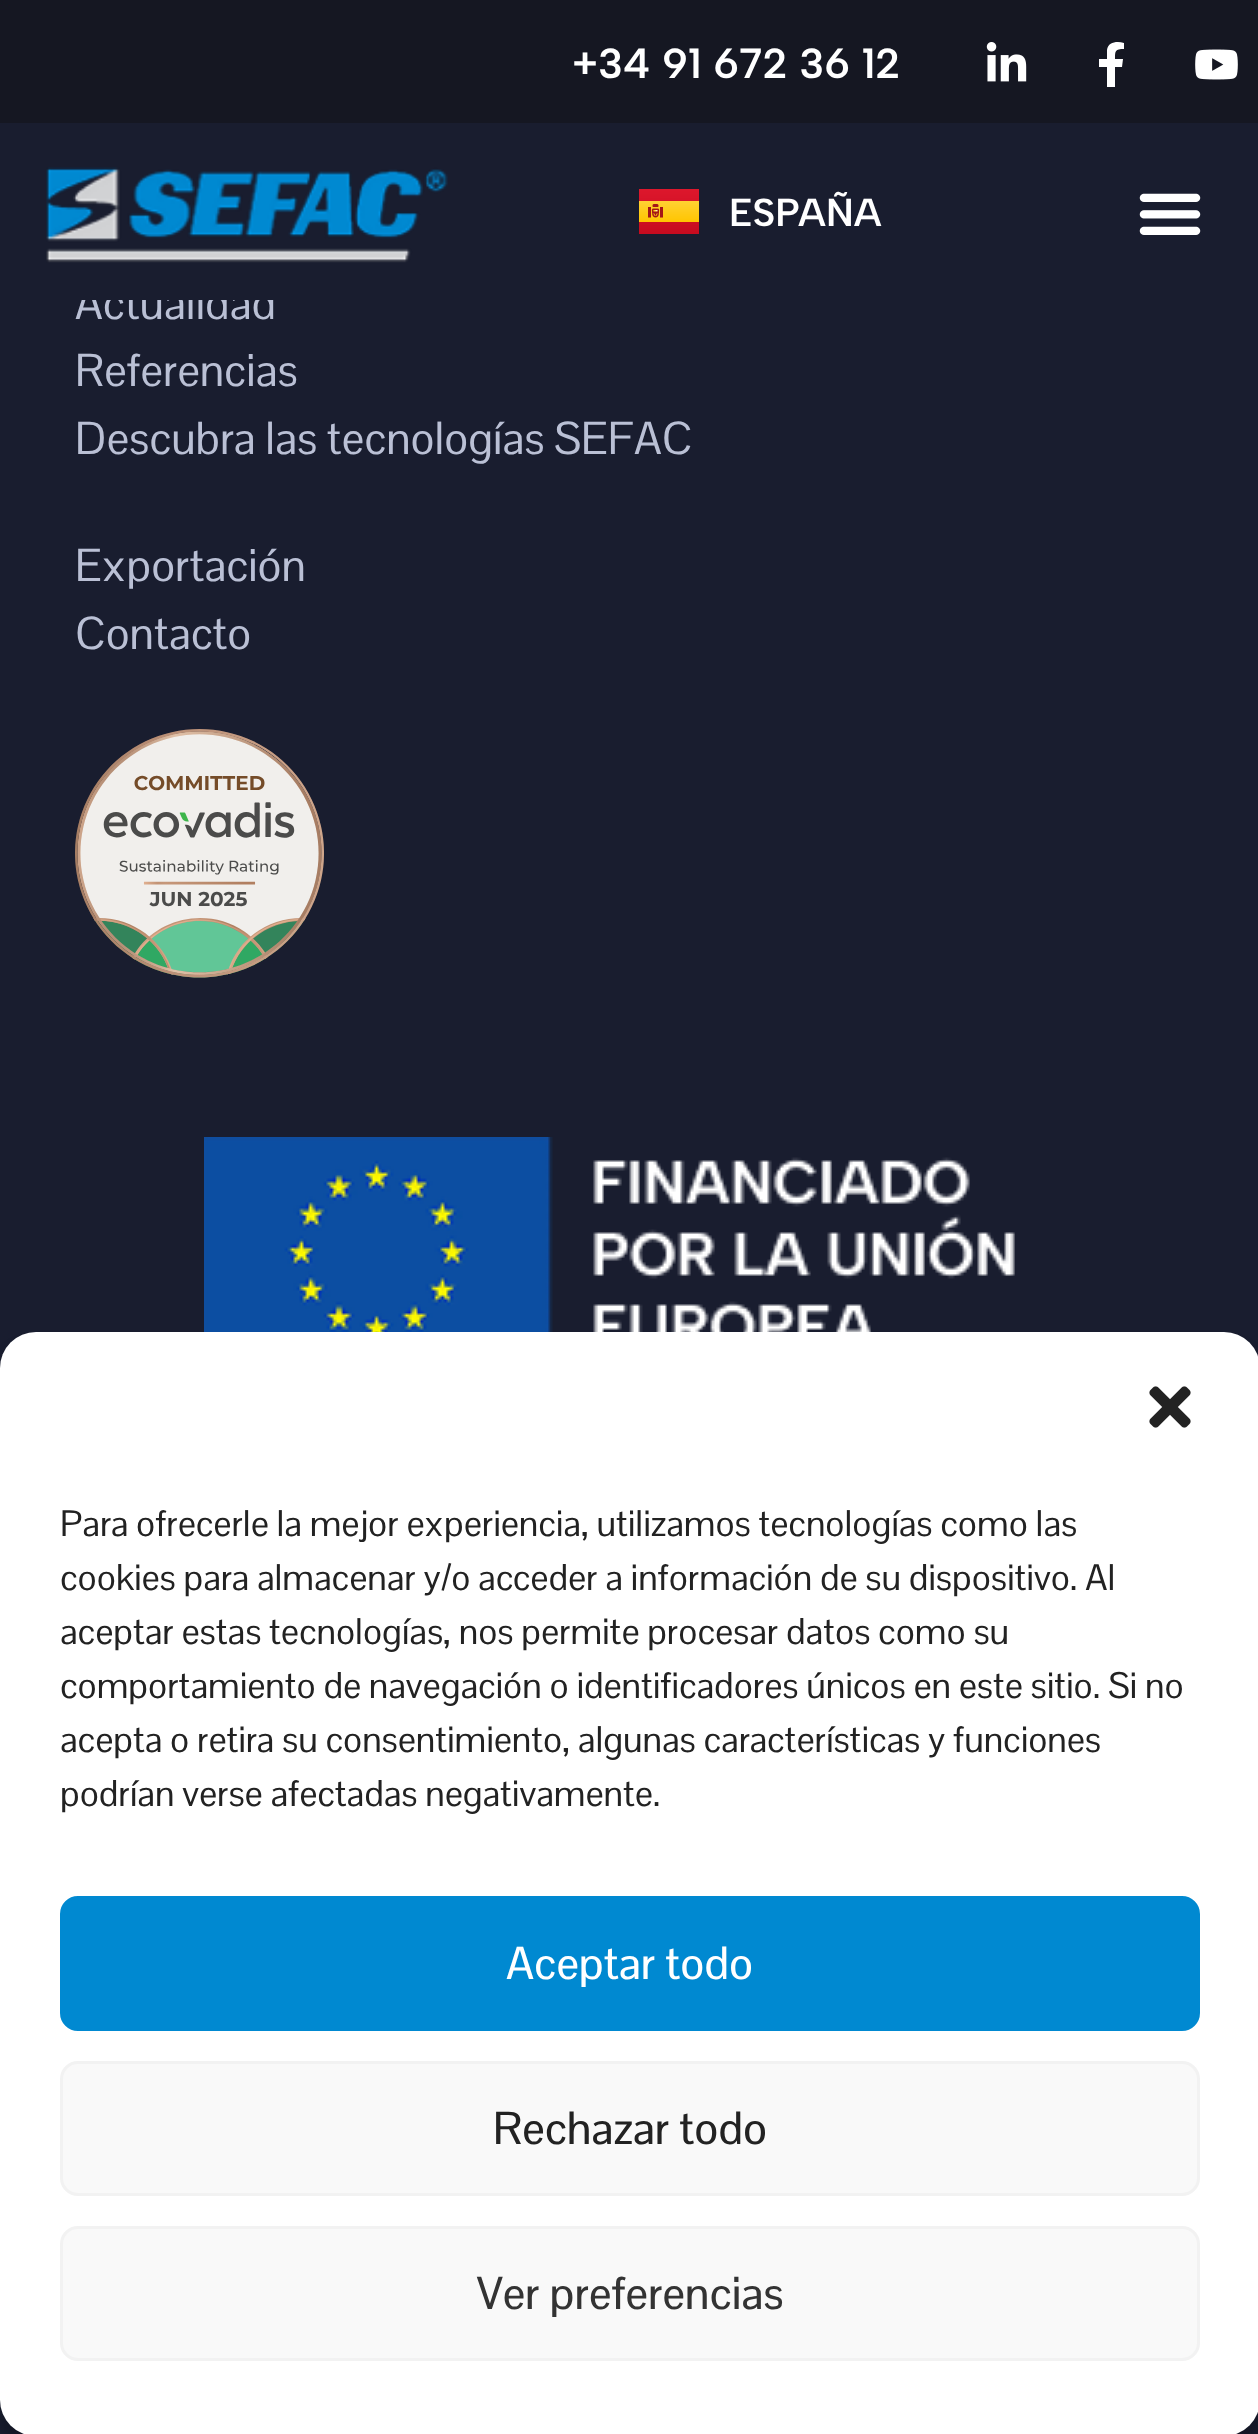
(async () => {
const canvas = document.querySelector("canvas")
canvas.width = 1258
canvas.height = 2434
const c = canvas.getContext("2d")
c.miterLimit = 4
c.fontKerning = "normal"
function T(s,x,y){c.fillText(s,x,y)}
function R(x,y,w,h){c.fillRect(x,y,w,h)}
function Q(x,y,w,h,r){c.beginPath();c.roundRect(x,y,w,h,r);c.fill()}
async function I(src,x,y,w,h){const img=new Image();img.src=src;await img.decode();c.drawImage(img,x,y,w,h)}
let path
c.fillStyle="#191d2f"
R(0,0,1258,2434)
c.fillStyle="#151722"
R(0,0,1258,123)
c.font="600 42px Albert Sans"
c.fillStyle="#fff"
T("+34 91 672 36 12",572,78)
await I("1.png",986,42,41,40)
path = new Path2D("M1122 67l1-8h-8c0-8 0-10 9-10v-6c-7-2-16-1-17 7v9h-8v8h8v20h8v-20z")
c.fill(path)
await I("2.png",1195,49,43,31)
c.font="45px Pontano Sans"
c.fillStyle="#bac0d5"
T("Actualidad",75,319)
c.fillStyle="#191d2f"
R(81,286,193,14)
await I("3.png",46,167,402,96)
await I("4.png",639,189,60,45)
c.font="600 39px Albert Sans"
c.fillStyle="#fff"
T("ESPAÑA",729,226)
await I("5.png",1139,193,62,42)
c.font="45px Pontano Sans"
c.fillStyle="#bac0d5"
T("Referencias",75,386)
T("Descubra las tecnologías SEFAC",75,454)
T("Exportación",75,581)
T("Contacto",75,649)
await I("6.png",75,729,249,249)
await I("7.png",204,1137,811,195)
c.fillStyle="#0000003b"
c.filter="blur(9px)"
c.beginPath()
c.roundRect(0,1350,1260,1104,36)
c.fill()
c.filter="none"
c.fillStyle="#fff"
Q(0,1332,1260,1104,36)
await I("8.png",1149,1386,42,42)
c.font="36px Pontano Sans"
c.fillStyle="#222"
T("Para ofrecerle la mejor experiencia, utilizamos tecnologías como las",60,1536)
T("cookies para almacenar y/o acceder a información de su dispositivo. Al",60,1590)
T("aceptar estas tecnologías, nos permite procesar datos como su",60,1644)
T("comportamiento de navegación o identificadores únicos en este sitio. Si no",60,1698)
T("acepta o retira su consentimiento, algunas características y funciones",60,1752)
T("podrían verse afectadas negativamente.",60,1806)
c.fillStyle="#0089d1"
c.beginPath()
c.roundRect(61.5,1897.5,1137,132,16.5)
c.fill()
c.strokeStyle="#0089d1"
c.lineWidth=3
c.stroke()
c.font="500 45px Pontano Sans"
c.fillStyle="#fff"
T("Aceptar todo",506,1979)
c.fillStyle="#f9f9f9"
c.beginPath()
c.roundRect(61.5,2062.5,1137,132,16.5)
c.fill()
c.strokeStyle="#f2f2f2"
c.stroke()
c.fillStyle="#222"
T("Rechazar todo",493,2144)
c.fillStyle="#f9f9f9"
c.beginPath()
c.roundRect(61.5,2227.5,1137,132,16.5)
c.fill()
c.stroke()
c.fillStyle="#333"
T("Ver preferencias",477,2309)
})()
